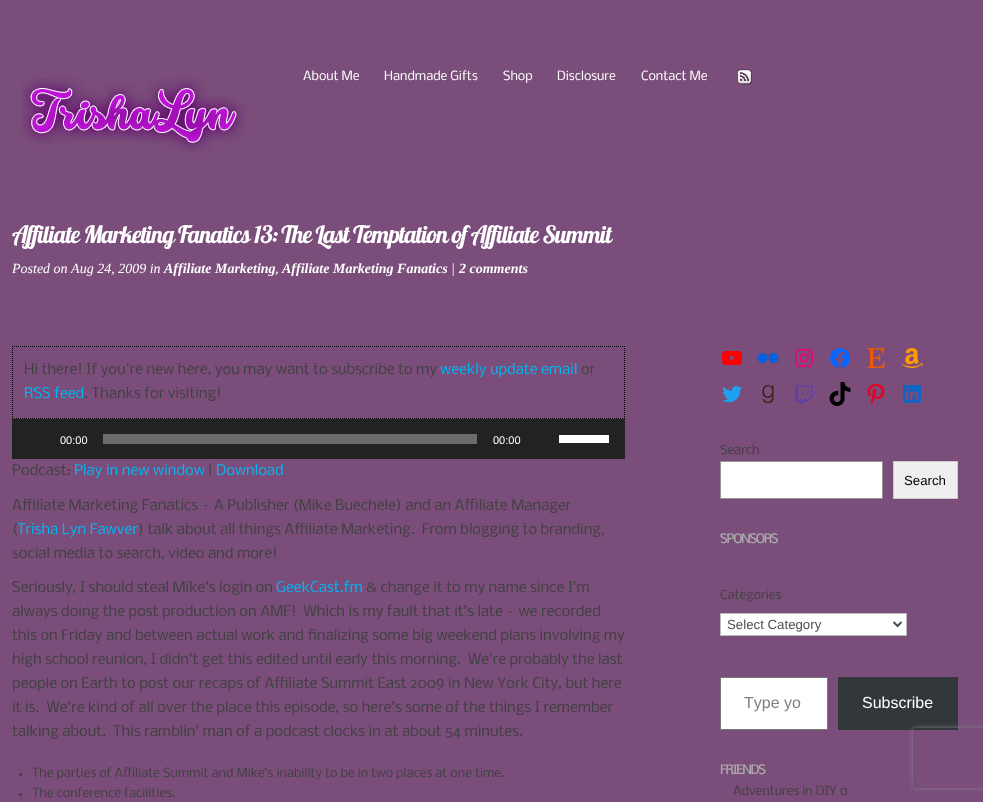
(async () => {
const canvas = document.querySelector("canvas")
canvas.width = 983
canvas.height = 802
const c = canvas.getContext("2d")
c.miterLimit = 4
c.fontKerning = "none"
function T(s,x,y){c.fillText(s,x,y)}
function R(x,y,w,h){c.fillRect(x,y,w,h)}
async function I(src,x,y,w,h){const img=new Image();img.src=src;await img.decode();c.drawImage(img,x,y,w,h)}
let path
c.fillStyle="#7a4d7a"
R(0,0,983,802)
await I("1.png",21,77,225,76)
c.font="12px Nobile"
c.fillStyle="#fff"
T("About Me",303,80)
T("Handmade Gifts",384,80)
T("Shop",503,80)
T("Disclosure",557,80)
T("Contact Me",641,80)
await I("2.png",737,69,15,16)
c.letterSpacing="-1px"
c.font="24px Lobster"
T("Affiliate Marketing Fanatics 13: The Last Temptation of Affiliate Summit",12,243)
c.letterSpacing="0px"
c.font="italic 14px Liberation Serif"
T("Posted on Aug 24, 2009 in",12,273)
c.font="italic bold 14px Liberation Serif"
T("Affiliate Marketing",164,273)
c.font="italic 14px Liberation Serif"
T(",",275,273)
c.font="italic bold 14px Liberation Serif"
T("Affiliate Marketing Fanatics",282,273)
c.font="italic 14px Liberation Serif"
T("|",451,273)
c.font="italic bold 14px Liberation Serif"
T("2 comments",459,273)
path = new Path2D("M12 346.5h613")
c.strokeStyle="#000"
c.setLineDash([1,1])
c.stroke(path)
path = new Path2D("M624.5 346v73")
c.stroke(path)
path = new Path2D("M12 418.5h613")
c.stroke(path)
path = new Path2D("M12.5 346v73")
c.stroke(path)
c.font="14px Nobile"
c.fillStyle="#414141"
T("Hi there! If you're new here, you may want to subscribe to my",24,374)
c.fillStyle="#00b7f3"
T("weekly update email",440,374)
c.fillStyle="#414141"
T("or",581,374)
c.fillStyle="#00b7f3"
T("RSS feed",24,398)
c.fillStyle="#414141"
T(". Thanks for visiting!",84,398)
c.fillStyle="#222"
R(12,419,613,40)
c.font="11px Liberation Sans"
c.fillStyle="#fff"
T("00:00",60,444)
c.fillStyle="#6b6b6b"
R(103,434,374,10)
c.fillStyle="#fff"
T("00:00",493,444)
R(559,435,50,8)
c.font="14px Nobile"
c.fillStyle="#414141"
T("Podcast:",12,475)
c.fillStyle="#00b7f3"
T("Play in new window",74,475)
c.fillStyle="#414141"
T("|",208,475)
c.fillStyle="#00b7f3"
T("Download",216,475)
c.fillStyle="#414141"
T("Affiliate Marketing Fanatics – A Publisher (Mike Buechele) and an Affiliate Manager",12,510)
T("(",12,534)
c.fillStyle="#00b7f3"
T("Trisha Lyn Fawver",17,534)
c.fillStyle="#414141"
T(") talk about all things Affiliate Marketing.  From blogging to branding,",138,534)
T("social media to search, video and more!",12,558)
T("Seriously, I should steal Mike’s login on",12,592)
c.fillStyle="#00b7f3"
T("GeekCast.fm",276,592)
c.fillStyle="#414141"
T("& change it to my name since I’m",366,592)
T("always doing the post production on AMF!  Which is my fault that it’s late – we recorded",12,616)
T("this on Friday and between actual work and finalizing some big weekend plans involving my",12,640)
T("high school reunion, I didn’t get this edited until early this morning.  We’re probably the last",12,664)
T("people on Earth to post our recaps of Affiliate Summit East 2009 in New York City, but here",12,688)
T("it is.  We’re kind of all over the place this episode, so here’s some of the things I remember",12,712)
T("talking about.  This ramblin’ man of a podcast clocks in at about 54 minutes.",12,736)
c.beginPath()
c.arc(20.5,774.5,1.5,0,7)
c.fill()
c.font="12px Nobile"
T("The parties of Affiliate Summit and Mike’s inability to be in two places at one time.",32,777)
c.beginPath()
c.arc(20.5,794.5,1.5,0,7)
c.fill()
T("The conference facilities.",32,797)
await I("3.png",722,351,20,14)
await I("4.png",757,353,22,10)
await I("5.png",795,349,18,18)
await I("6.png",830,348,20,20)
await I("7.png",867,348,18,20)
await I("8.png",901,348,22,20)
await I("9.png",722,386,20,17)
await I("10.png",762,385,12,18)
await I("11.png",795,385,18,19)
await I("12.png",829,382,22,24)
await I("13.png",867,384,18,21)
await I("14.png",903,385,18,18)
T("Search",720,454)
c.fillStyle="#fff"
c.beginPath()
c.rect(720.5,461.5,162,37)
c.fill()
c.strokeStyle="#949494"
c.setLineDash([])
c.stroke()
c.fillStyle="#efefef"
c.beginPath()
c.rect(893.5,461.5,64,37)
c.fill()
c.strokeStyle="#ccc"
c.stroke()
c.font="13.25px Liberation Sans"
c.fillStyle="#000"
T("Search",904,485)
c.letterSpacing="-1px"
c.font="bold 12px Nobile"
c.fillStyle="#ababab"
T("SPONSORS",720,543)
c.letterSpacing="0px"
c.font="12px Nobile"
c.fillStyle="#414141"
T("Categories",720,599)
c.fillStyle="#fff"
c.beginPath()
c.rect(720.5,613.5,186,22)
c.fill()
c.strokeStyle="#bbb"
c.stroke()
path = new Path2D("M893.5 622l4 4l4-4")
c.strokeStyle="#4e4e4e"
c.lineWidth=2
c.stroke(path)
c.font="13.25px Liberation Sans"
c.fillStyle="#4e4e4e"
T("Select Category",727,629)
c.fillStyle="#fff"
c.beginPath()
c.rect(720.5,677.5,107,52)
c.fill()
c.strokeStyle="#767676"
c.lineWidth=1
c.stroke()
c.font="16px Liberation Sans"
c.fillStyle="#808080"
T("Type yo",744,708)
c.fillStyle="#32373c"
R(838,677,120,53)
c.fillStyle="#fff"
T("Subscribe",862,708)
c.letterSpacing="-1px"
c.font="bold 12px Nobile"
c.fillStyle="#ababab"
T("FRIENDS",720,774)
c.letterSpacing="0px"
c.font="12px Nobile"
c.fillStyle="#414141"
T("Adventures in DIY 0",733,795)
c.save()
path = new Path2D("M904 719h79v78h-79zm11 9h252c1 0 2 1 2 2v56c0 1-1 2-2 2h-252c-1 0-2-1-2-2v-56c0-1 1-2 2-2z")
c.clip(path,"evenodd")
c.fillStyle="#808080"
c.filter="blur(2.5px)"
c.beginPath()
c.roundRect(913,728,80,60,2)
c.fill()
c.filter="none"
c.restore()
})()
